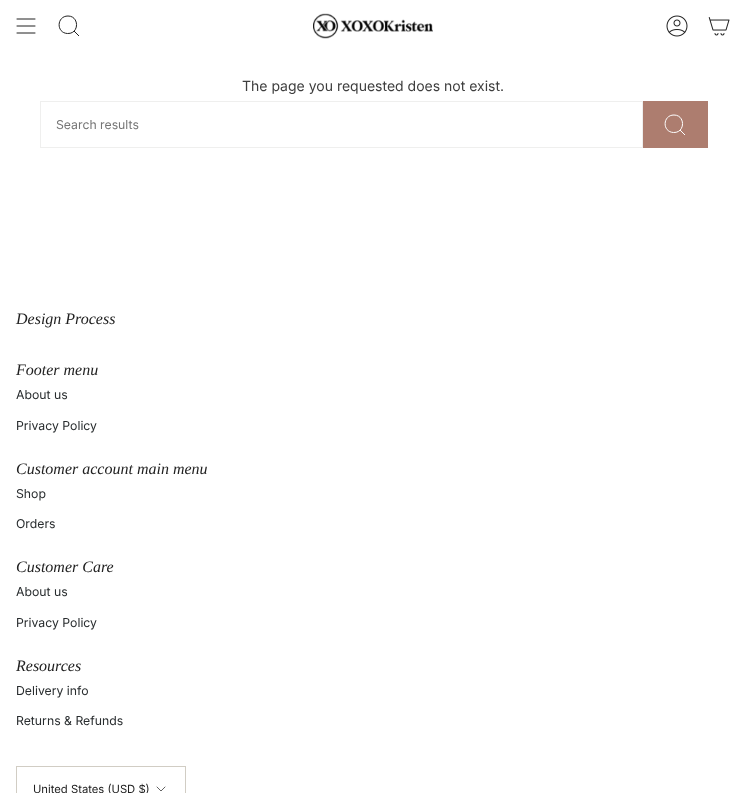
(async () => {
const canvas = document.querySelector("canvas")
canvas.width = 747
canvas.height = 793
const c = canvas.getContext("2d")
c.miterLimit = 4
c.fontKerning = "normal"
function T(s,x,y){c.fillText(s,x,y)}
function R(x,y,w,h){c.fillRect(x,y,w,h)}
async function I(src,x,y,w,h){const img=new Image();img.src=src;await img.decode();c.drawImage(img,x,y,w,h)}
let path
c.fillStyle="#fff"
R(0,0,747,793)
path = new Path2D("M17 19h18m-18 7h18m-18 7h18")
c.strokeStyle="#212121"
c.lineCap="round"
c.lineJoin="round"
c.stroke(path)
path = new Path2D("M68 16c11.5 0 11.5 18-.5 17.5c-11.5-.5-11-17.5 .5-17.5zm6 15l5 5")
c.lineCap="butt"
c.lineJoin="miter"
c.stroke(path)
await I("1.png",313,13,120,26)
await I("2.png",666,15,22,22)
await I("3.png",708,17,22,19)
c.font="14px Inter"
c.fillStyle="#3e3e3e"
T("The page you requested does not exist.",242,91)
c.strokeStyle="#efefee"
c.strokeRect(40.5,101.5,602,46)
c.font="12.25px Inter"
c.fillStyle="#757575"
T("Search results",56,129)
c.fillStyle="#ad7d6f"
R(643,101,65,47)
path = new Path2D("M674 115c11.5 0 11.5 18-.5 17.5c-11.5-.5-11-17.5 .5-17.5zm6 15l5 5")
c.strokeStyle="#fff"
c.stroke(path)
c.font="italic 16px Liberation Serif"
c.fillStyle="#212121"
T("Design Process",16,324)
T("Footer menu",16,375)
c.font="12.25px Inter"
c.fillStyle="#282c2e"
T("About us",16,399)
T("Privacy Policy",16,430)
c.font="italic 16px Liberation Serif"
c.fillStyle="#212121"
T("Customer account main menu",16,474)
c.font="12.25px Inter"
c.fillStyle="#282c2e"
T("Shop",16,498)
T("Orders",16,528)
c.font="italic 16px Liberation Serif"
c.fillStyle="#212121"
T("Customer Care",16,572)
c.font="12.25px Inter"
c.fillStyle="#282c2e"
T("About us",16,596)
T("Privacy Policy",16,627)
c.font="italic 16px Liberation Serif"
c.fillStyle="#212121"
T("Resources",16,671)
c.font="12.25px Inter"
c.fillStyle="#282c2e"
T("Delivery info",16,695)
T("Returns & Refunds",16,725)
c.strokeStyle="#d1cdc4"
c.strokeRect(16.5,766.5,169,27)
c.font="11.25px Inter"
c.fillStyle="#212121"
T("United States (USD $)",33,793)
path = new Path2D("M157 787l4 4l4-4")
c.strokeStyle="#212121"
c.lineWidth=0.7
c.lineCap="round"
c.lineJoin="round"
c.stroke(path)
})()
